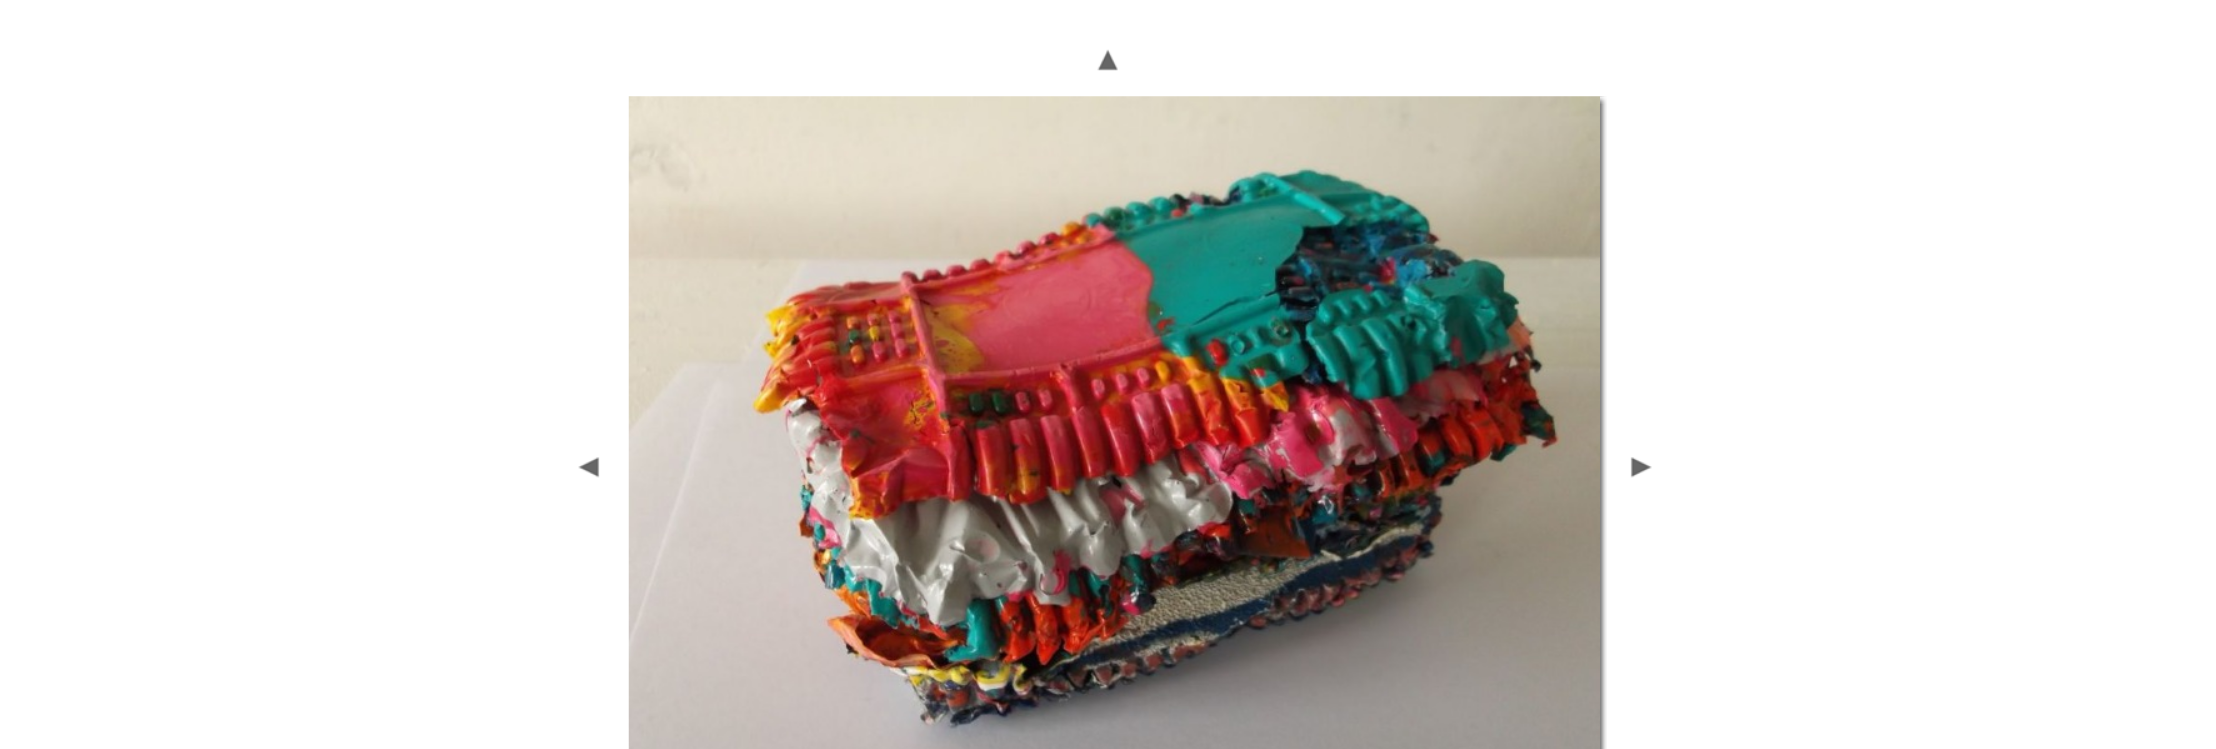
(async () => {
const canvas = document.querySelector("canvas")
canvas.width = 2216
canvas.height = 749
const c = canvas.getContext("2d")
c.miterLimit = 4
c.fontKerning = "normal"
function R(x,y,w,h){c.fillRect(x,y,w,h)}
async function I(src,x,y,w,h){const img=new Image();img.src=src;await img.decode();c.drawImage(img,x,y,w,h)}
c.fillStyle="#fff"
R(0,0,2216,749)
await I("1.png",1097,49,21,22)
await I("2.png",578,457,22,21)
await I("3.png",628,96,972,653)
await I("4.png",1600,96,7,653)
await I("5.png",1600,96,7,8)
await I("6.png",1630,457,22,21)
})()
